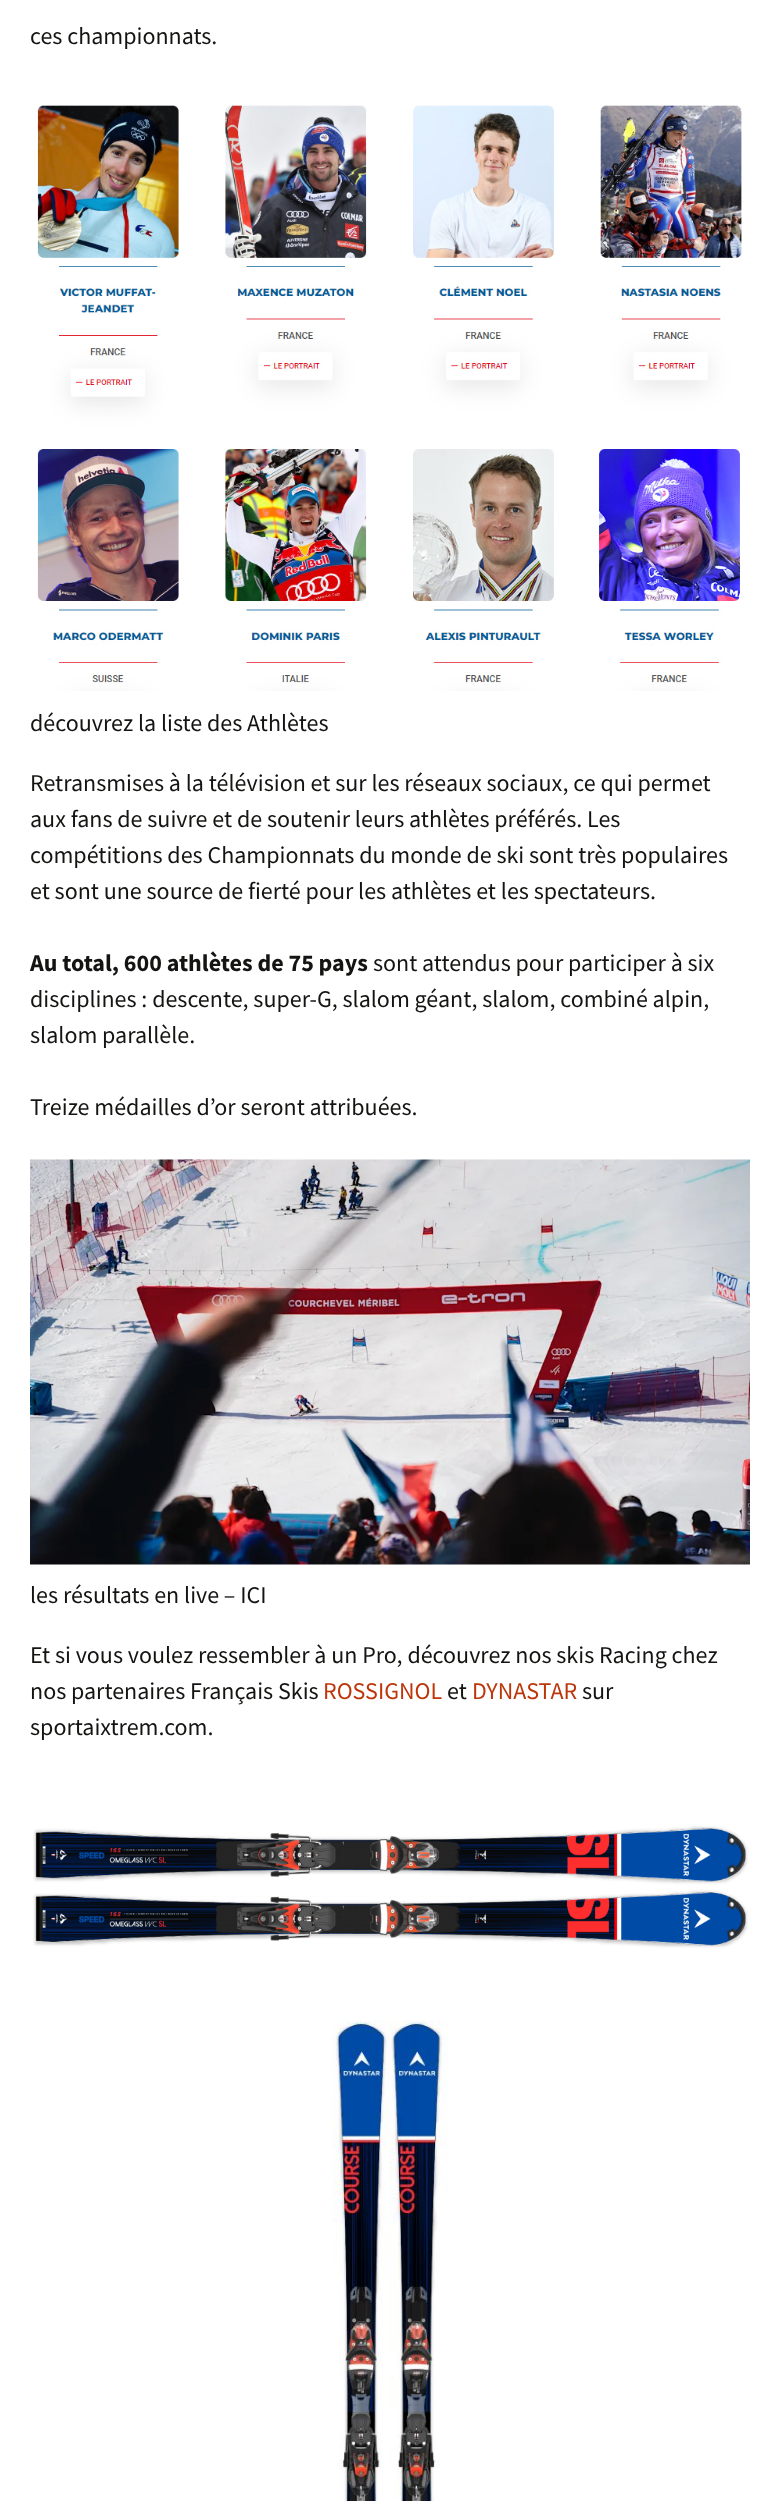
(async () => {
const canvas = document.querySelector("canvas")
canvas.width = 780
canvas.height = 2501
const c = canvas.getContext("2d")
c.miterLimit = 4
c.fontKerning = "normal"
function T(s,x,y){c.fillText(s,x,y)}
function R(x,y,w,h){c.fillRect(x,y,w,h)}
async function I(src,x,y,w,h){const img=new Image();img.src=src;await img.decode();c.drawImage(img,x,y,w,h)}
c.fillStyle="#fff"
R(0,0,780,2501)
c.font="24px Source Sans Pro"
c.fillStyle="#141412"
T("ces championnats.",30,44)
await I("1.png",37,105,705,586)
T("découvrez la liste des Athlètes",30,731)
T("Retransmises à la télévision et sur les réseaux sociaux, ce qui permet",30,791)
T("aux fans de suivre et de soutenir leurs athlètes préférés. Les",30,827)
T("compétitions des Championnats du monde de ski sont très populaires",30,863)
T("et sont une source de fierté pour les athlètes et les spectateurs.",30,899)
c.font="bold 24px Source Sans Pro"
T("Au total, 600 athlètes de 75 pays",30,971)
c.font="24px Source Sans Pro"
T("sont attendus pour participer à six",373,971)
T("disciplines : descente, super-G, slalom géant, slalom, combiné alpin,",30,1007)
T("slalom parallèle.",30,1043)
T("Treize médailles d’or seront attribuées.",30,1115)
await I("2.png",30,1159,720,406)
T("les résultats en live – ICI",30,1603)
T("Et si vous voulez ressembler à un Pro, découvrez nos skis Racing chez",30,1663)
T("nos partenaires Français Skis",30,1699)
c.fillStyle="#bc360a"
T("ROSSIGNOL",323,1699)
c.fillStyle="#141412"
T("et",447,1699)
c.fillStyle="#bc360a"
T("DYNASTAR",472,1699)
c.fillStyle="#141412"
T("sur",582,1699)
T("sportaixtrem.com.",30,1735)
await I("3.png",33,1826,716,122)
await I("4.png",332,2020,116,481)
})()
